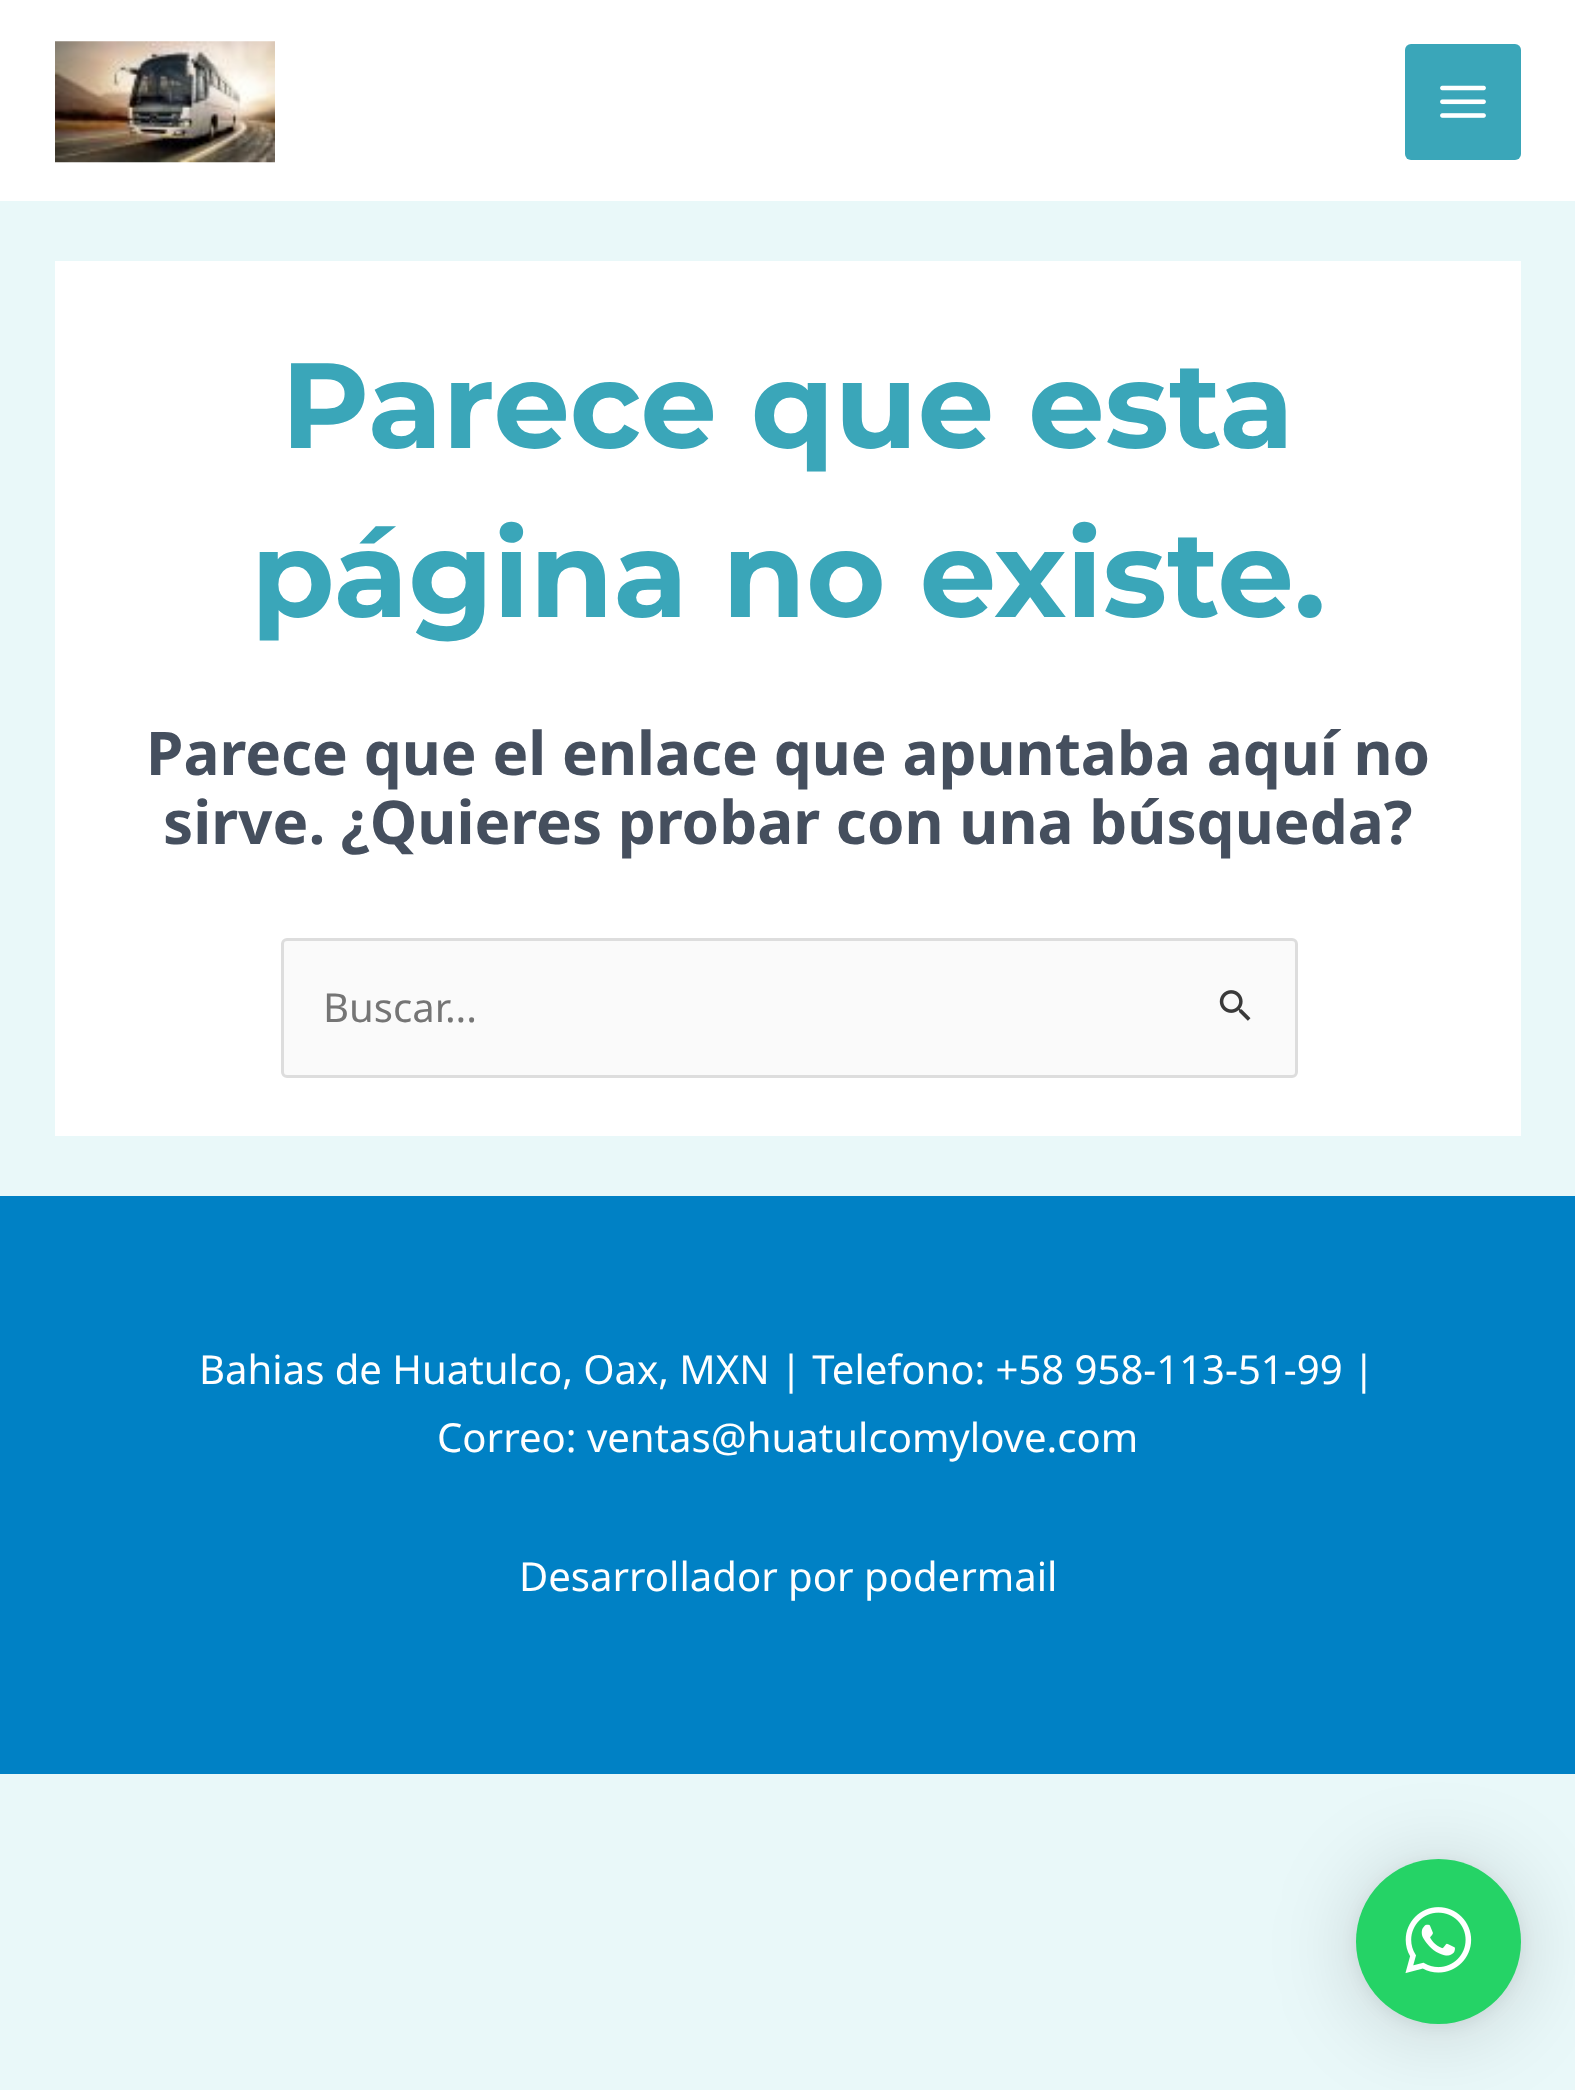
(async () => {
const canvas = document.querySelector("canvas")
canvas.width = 1575
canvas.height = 2090
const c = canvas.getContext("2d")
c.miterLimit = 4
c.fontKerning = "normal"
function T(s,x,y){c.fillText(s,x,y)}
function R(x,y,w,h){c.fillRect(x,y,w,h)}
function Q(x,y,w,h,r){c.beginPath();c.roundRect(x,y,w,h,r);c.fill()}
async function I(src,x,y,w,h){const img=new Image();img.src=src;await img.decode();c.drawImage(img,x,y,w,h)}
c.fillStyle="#e9f8f9"
R(0,0,1575,2090)
c.fillStyle="#fff"
R(0,0,1575,201)
await I("1.png",55,41,220,122)
c.fillStyle="#3aa6b9"
Q(1405,44,116,116,6)
await I("2.png",1440,85,46,33)
c.fillStyle="#fff"
R(55,261,1466,875)
c.font="100 121px Montserrat"
c.fillStyle="#3aa6b9"
T("Parece que esta",281,448)
T("página no existe.",251,617)
c.font="bold 60.2px Noto Sans"
c.fillStyle="#454f5e"
T("Parece que el enlace que apuntaba aquí no",146,775)
T("sirve. ¿Quieres probar con una búsqueda?",163,844)
c.fillStyle="#fafafa"
c.beginPath()
c.roundRect(282.5,939.5,1014,137,4.5)
c.fill()
c.strokeStyle="#ddd"
c.lineWidth=3
c.stroke()
c.font="40.1px Noto Sans"
c.fillStyle="#757575"
T("Buscar...",323,1022)
await I("3.png",1219,990,32,31)
c.fillStyle="#0081c5"
R(0,1196,1575,578)
c.wordSpacing="-0.1px"
c.fillStyle="#fff"
T("Bahias de Huatulco, Oax, MXN | Telefono: +58 958-113-51-99 |",199,1384)
c.wordSpacing="0px"
T("Correo: ventas@huatulcomylove.com",437,1452)
T("Desarrollador por podermail",519,1591)
c.fillStyle="#00000029"
c.filter="blur(44px)"
c.beginPath()
c.roundRect(1356,1865,165,165,82.5)
c.fill()
c.filter="none"
c.fillStyle="#0000000f"
c.filter="blur(8px)"
c.beginPath()
c.roundRect(1356,1862,165,165,82.5)
c.fill()
c.filter="none"
c.fillStyle="#25d366"
c.beginPath()
c.arc(1438.5,1941.5,82.5,0,7)
c.fill()
await I("4.png",1405,1907,67,67)
})()
